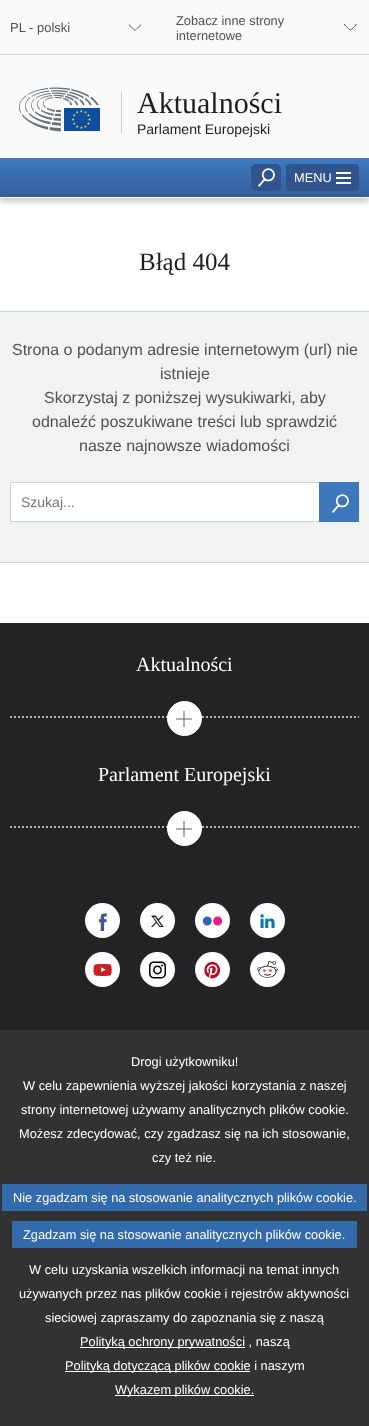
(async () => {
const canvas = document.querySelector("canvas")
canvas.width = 369
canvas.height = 1426
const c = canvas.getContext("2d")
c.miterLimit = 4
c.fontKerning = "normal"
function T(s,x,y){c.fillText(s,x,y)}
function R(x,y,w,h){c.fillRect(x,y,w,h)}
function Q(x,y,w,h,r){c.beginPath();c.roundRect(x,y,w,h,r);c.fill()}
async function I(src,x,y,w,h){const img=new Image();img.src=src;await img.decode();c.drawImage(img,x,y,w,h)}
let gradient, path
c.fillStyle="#232225"
R(0,0,369,1426)
c.fillStyle="#323232"
R(0,1030,369,396)
c.fillStyle="#fafafa"
R(0,0,369,158)
c.fillStyle="#d1d3d4"
R(0,54,369,1)
c.font="13px Liberation Sans"
c.fillStyle="#505154"
T("PL - polski",10,32)
path = new Path2D("M140.5 24.5c0 1.5-1.5 2.5-2.5 3c-3 3.5-3 3.5-6 0c-1-.5-2.5-1.5-2.5-3")
c.strokeStyle="#505154"
c.stroke(path)
c.font="12.8px Liberation Sans"
T("Zobacz inne strony",176,25)
path = new Path2D("M356 24c0 1.5-1.5 2.5-2.5 3.5c-3 3-3 3-6 0c-1-1-3-2-3-3.5")
c.stroke(path)
T("internetowe",176,40)
c.fillStyle="#ccc"
R(121,92,1,41)
c.font="30px Liberation Serif"
c.fillStyle="#1e1e1f"
T("Aktualności",137,113)
await I("1.png",18,87,82,45)
c.font="14px Liberation Sans"
T("Parlament Europejski",137,134)
c.fillStyle="#fff"
R(0,198,369,425)
c.fillStyle="#00000033"
c.filter="blur(2.5px)"
c.beginPath()
c.rect(0,162,369,40)
c.fill()
c.filter="none"
gradient = c.createLinearGradient(185,158,185,197)
gradient.addColorStop(0,"#3d7ac1")
gradient.addColorStop(1,"#345e9c")
c.fillStyle = gradient
R(0,158,369,39)
c.fillStyle="#fff"
R(0,197,369,1)
c.fillStyle="#32548d"
c.beginPath()
c.roundRect(251.5,164.5,29,26,4.5)
c.fill()
c.strokeStyle="#32548d"
c.stroke()
await I("2.png",258,168,17,19)
Q(286,164,73,27,4)
c.font="12.8px Liberation Sans"
c.fillStyle="#fff"
T("MENU",294,182)
R(336,177,15,2)
R(336,172,15,2)
R(336,182,15,2)
c.font="25px Liberation Serif"
c.fillStyle="#1e1e1f"
T("Błąd 404",139,270)
c.fillStyle="#f1f2f2"
R(0,312,369,250)
c.fillStyle="#d1d3d4"
R(0,311,369,1)
c.font="16px Liberation Sans"
c.fillStyle="#505154"
T("Strona o podanym adresie internetowym (url) nie",12,355)
T("istnieje",160,379)
T("Skorzystaj z poniższej wysukiwarki, aby",44,403)
T("odnaleźć poszukiwane treści lub sprawdzić",32,427)
T("nasze najnowsze wiadomości",79,451)
c.fillStyle="#fff"
R(11,483,308,38)
c.strokeStyle="#d1d3d4"
c.strokeRect(10.5,482.5,348,39)
c.font="14px Liberation Sans"
c.fillStyle="#757575"
T("Szukaj...",21,507)
c.fillStyle="#3c77bd"
R(319,482,40,40)
await I("3.png",332,494,17,19)
c.fillStyle="#d1d3d4"
R(0,562,369,1)
c.font="20px Liberation Serif"
c.fillStyle="#fff"
T("Aktualności",136,671)
path = new Path2D("M10 717h349")
c.strokeStyle="#b1b3b6"
c.lineWidth=2
c.setLineDash([2,2])
c.stroke(path)
c.beginPath()
c.arc(184.5,718.5,17,0,7)
c.fill()
c.strokeStyle="#fff"
c.lineWidth=1
c.setLineDash([])
c.stroke()
await I("4.png",176,711,16,16)
T("Parlament Europejski",98,781)
path = new Path2D("M10 827h349")
c.strokeStyle="#b1b3b6"
c.lineWidth=2
c.setLineDash([2,2])
c.stroke(path)
c.beginPath()
c.arc(184.5,828.5,17,0,7)
c.fill()
c.strokeStyle="#fff"
c.lineWidth=1
c.setLineDash([])
c.stroke()
await I("4.png",176,821,16,16)
c.beginPath()
c.arc(102.5,920.5,17.5,0,7)
c.fill()
await I("5.png",99,913,8,18)
c.beginPath()
c.arc(157.5,920.5,17.5,0,7)
c.fill()
await I("6.png",151,915,13,12)
c.beginPath()
c.arc(212.5,920.5,17.5,0,7)
c.fill()
await I("7.png",202,916,21,10)
c.beginPath()
c.arc(267.5,920.5,17.5,0,7)
c.fill()
await I("8.png",260,914,15,14)
c.beginPath()
c.arc(102.5,969.5,17.5,0,7)
c.fill()
await I("9.png",93,964,19,12)
c.beginPath()
c.arc(157.5,969.5,17.5,0,7)
c.fill()
await I("10.png",149,961,17,18)
c.beginPath()
c.arc(212.5,969.5,17.5,0,7)
c.fill()
await I("11.png",204,961,17,18)
c.beginPath()
c.arc(267.5,969.5,17.5,0,7)
c.fill()
await I("12.png",257,961,21,17)
c.font="12.8px Liberation Sans"
T("Drogi użytkowniku!",131,1066)
T("W celu zapewnienia wyższej jakości korzystania z naszej",23,1090)
T("strony internetowej używamy analitycznych plików cookie.",21,1114)
T("Możesz zdecydować, czy zgadzasz się na ich stosowanie,",19,1138)
T("czy też nie.",152,1162)
c.fillStyle="#326aab"
R(2,1184,365,27)
c.fillStyle="#fff"
T("Nie zgadzam się na stosowanie analitycznych plików cookie.",13,1202)
c.fillStyle="#326aab"
R(12,1221,345,27)
c.fillStyle="#fff"
T("Zgadzam się na stosowanie analitycznych plików cookie.",23,1239)
T("W celu uzyskania wszelkich informacji na temat innych",29,1274)
T("używanych przez nas plików cookie i rejestrów aktywności",19,1298)
T("sieciowej zapraszamy do zapoznania się z naszą",45,1322)
R(80,1347,165,1)
T("Polityką ochrony prywatności , naszą",80,1346)
R(65,1371,185,1)
T("Polityką dotyczącą plików cookie i naszym",65,1370)
R(115,1395,139,1)
T("Wykazem plików cookie.",115,1394)
})()
